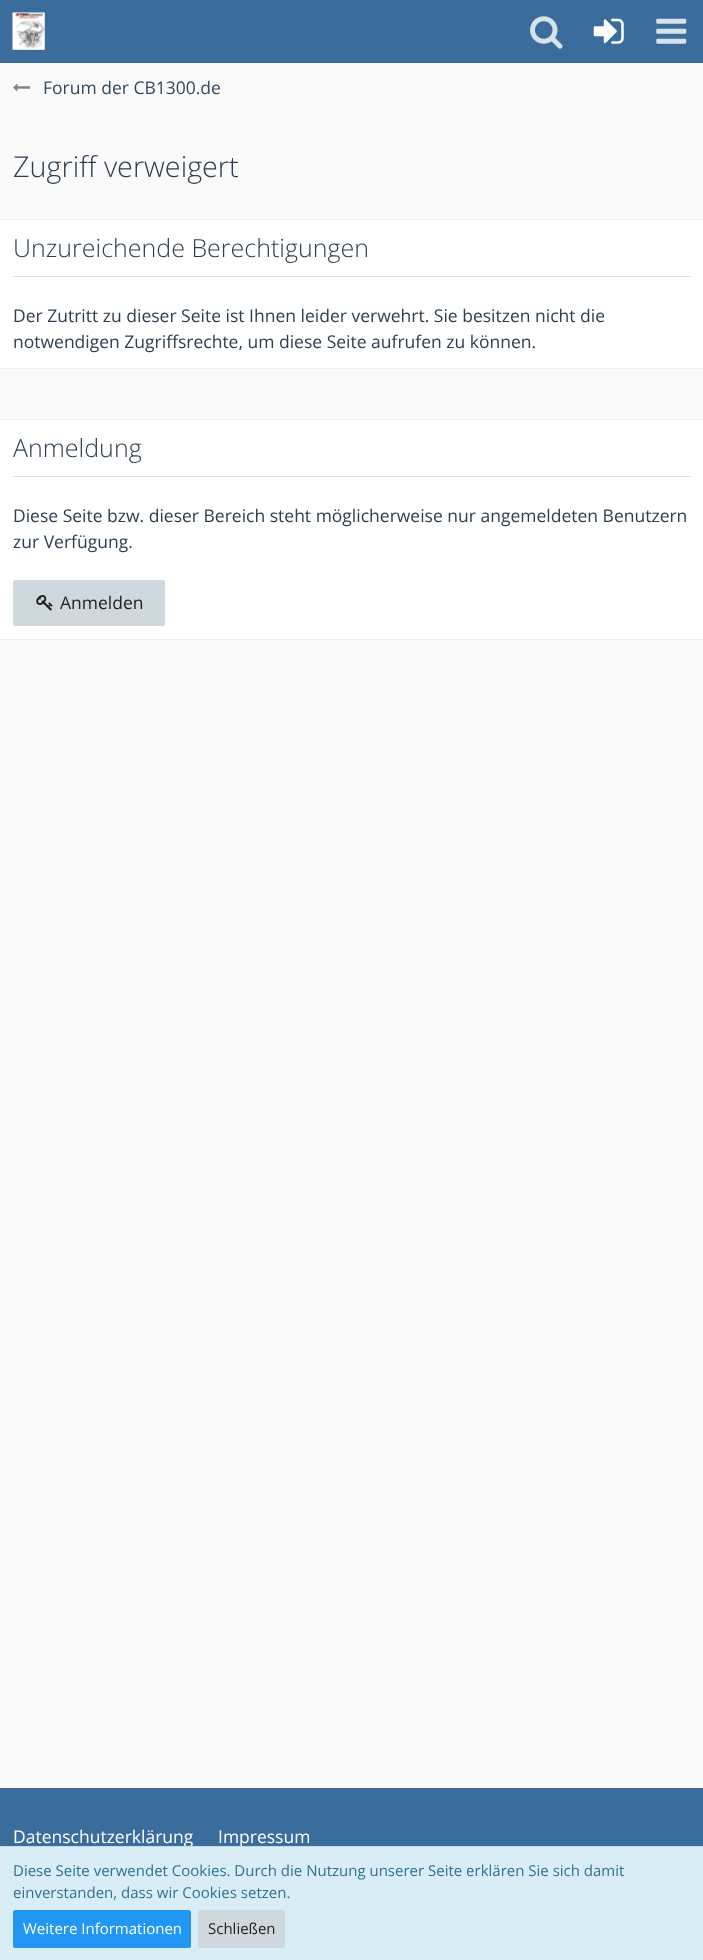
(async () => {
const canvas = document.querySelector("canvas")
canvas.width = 703
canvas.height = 1960
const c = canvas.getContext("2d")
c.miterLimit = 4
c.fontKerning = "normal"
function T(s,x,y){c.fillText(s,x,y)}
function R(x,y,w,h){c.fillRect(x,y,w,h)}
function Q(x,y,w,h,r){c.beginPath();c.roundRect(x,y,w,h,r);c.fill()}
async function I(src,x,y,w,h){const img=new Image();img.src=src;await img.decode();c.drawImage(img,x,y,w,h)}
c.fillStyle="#fafafa"
R(0,0,703,1960)
c.fillStyle="#3a6d9c"
R(0,0,703,63)
await I("1.png",12,12,33,38)
await I("2.png",530,16,33,33)
await I("3.png",593,18,31,26)
await I("4.png",656,18,31,26)
await I("5.png",13,83,17,9)
c.font="17.5px Open Sans"
c.fillStyle="#34495e"
T("Forum der CB1300.de",43,94)
c.font="300 28.75px Open Sans"
c.fillStyle="#2c3e50"
T("Zugriff verweigert",13,177)
c.fillStyle="#fff"
R(0,220,703,148)
c.fillStyle="#ecf1f7"
R(0,219,703,1)
R(0,368,703,1)
c.fillStyle="#e0e0e0"
R(13,276,678,1)
c.font="300 25px Open Sans"
c.fillStyle="#2c3e50"
T("Unzureichende Berechtigungen",13,257)
c.font="17.5px Open Sans"
T("Der Zutritt zu dieser Seite ist Ihnen leider verwehrt. Sie besitzen nicht die",13,322)
T("notwendigen Zugriffsrechte, um diese Seite aufrufen zu können.",13,348)
c.fillStyle="#fff"
R(0,420,703,219)
c.fillStyle="#ecf1f7"
R(0,419,703,1)
R(0,639,703,1)
c.fillStyle="#e0e0e0"
R(13,476,678,1)
c.font="300 25px Open Sans"
c.fillStyle="#2c3e50"
T("Anmeldung",13,457)
c.font="17.5px Open Sans"
T("Diese Seite bzw. dieser Bereich steht möglicherweise nur angemeldeten Benutzern",13,522)
T("zur Verfügung.",13,548)
c.fillStyle="#cfd8dc"
Q(13,580,152,46,2.5)
await I("6.png",36,595,17,16)
c.fillStyle="#212121"
T("Anmelden",60,609)
c.fillStyle="#3a6d9c"
R(0,1788,703,58)
c.fillStyle="#fff"
T("Datenschutzerklärung",13,1843)
T("Impressum",218,1843)
c.fillStyle="#d9edf7"
R(0,1847,703,113)
c.fillStyle="#bcdff1"
R(0,1846,703,1)
c.font="15px Open Sans"
c.fillStyle="#31708f"
T("Diese Seite verwendet Cookies. Durch die Nutzung unserer Seite erklären Sie sich damit",13,1876)
T("einverstanden, dass wir Cookies setzen.",13,1898)
c.fillStyle="#2196f3"
Q(13,1910,178,38,2.5)
c.fillStyle="#fff"
T("Weitere Informationen",23,1934)
c.fillStyle="#cfd8dc"
Q(198,1910,87,38,2.5)
c.fillStyle="#212121"
T("Schließen",208,1934)
})()
